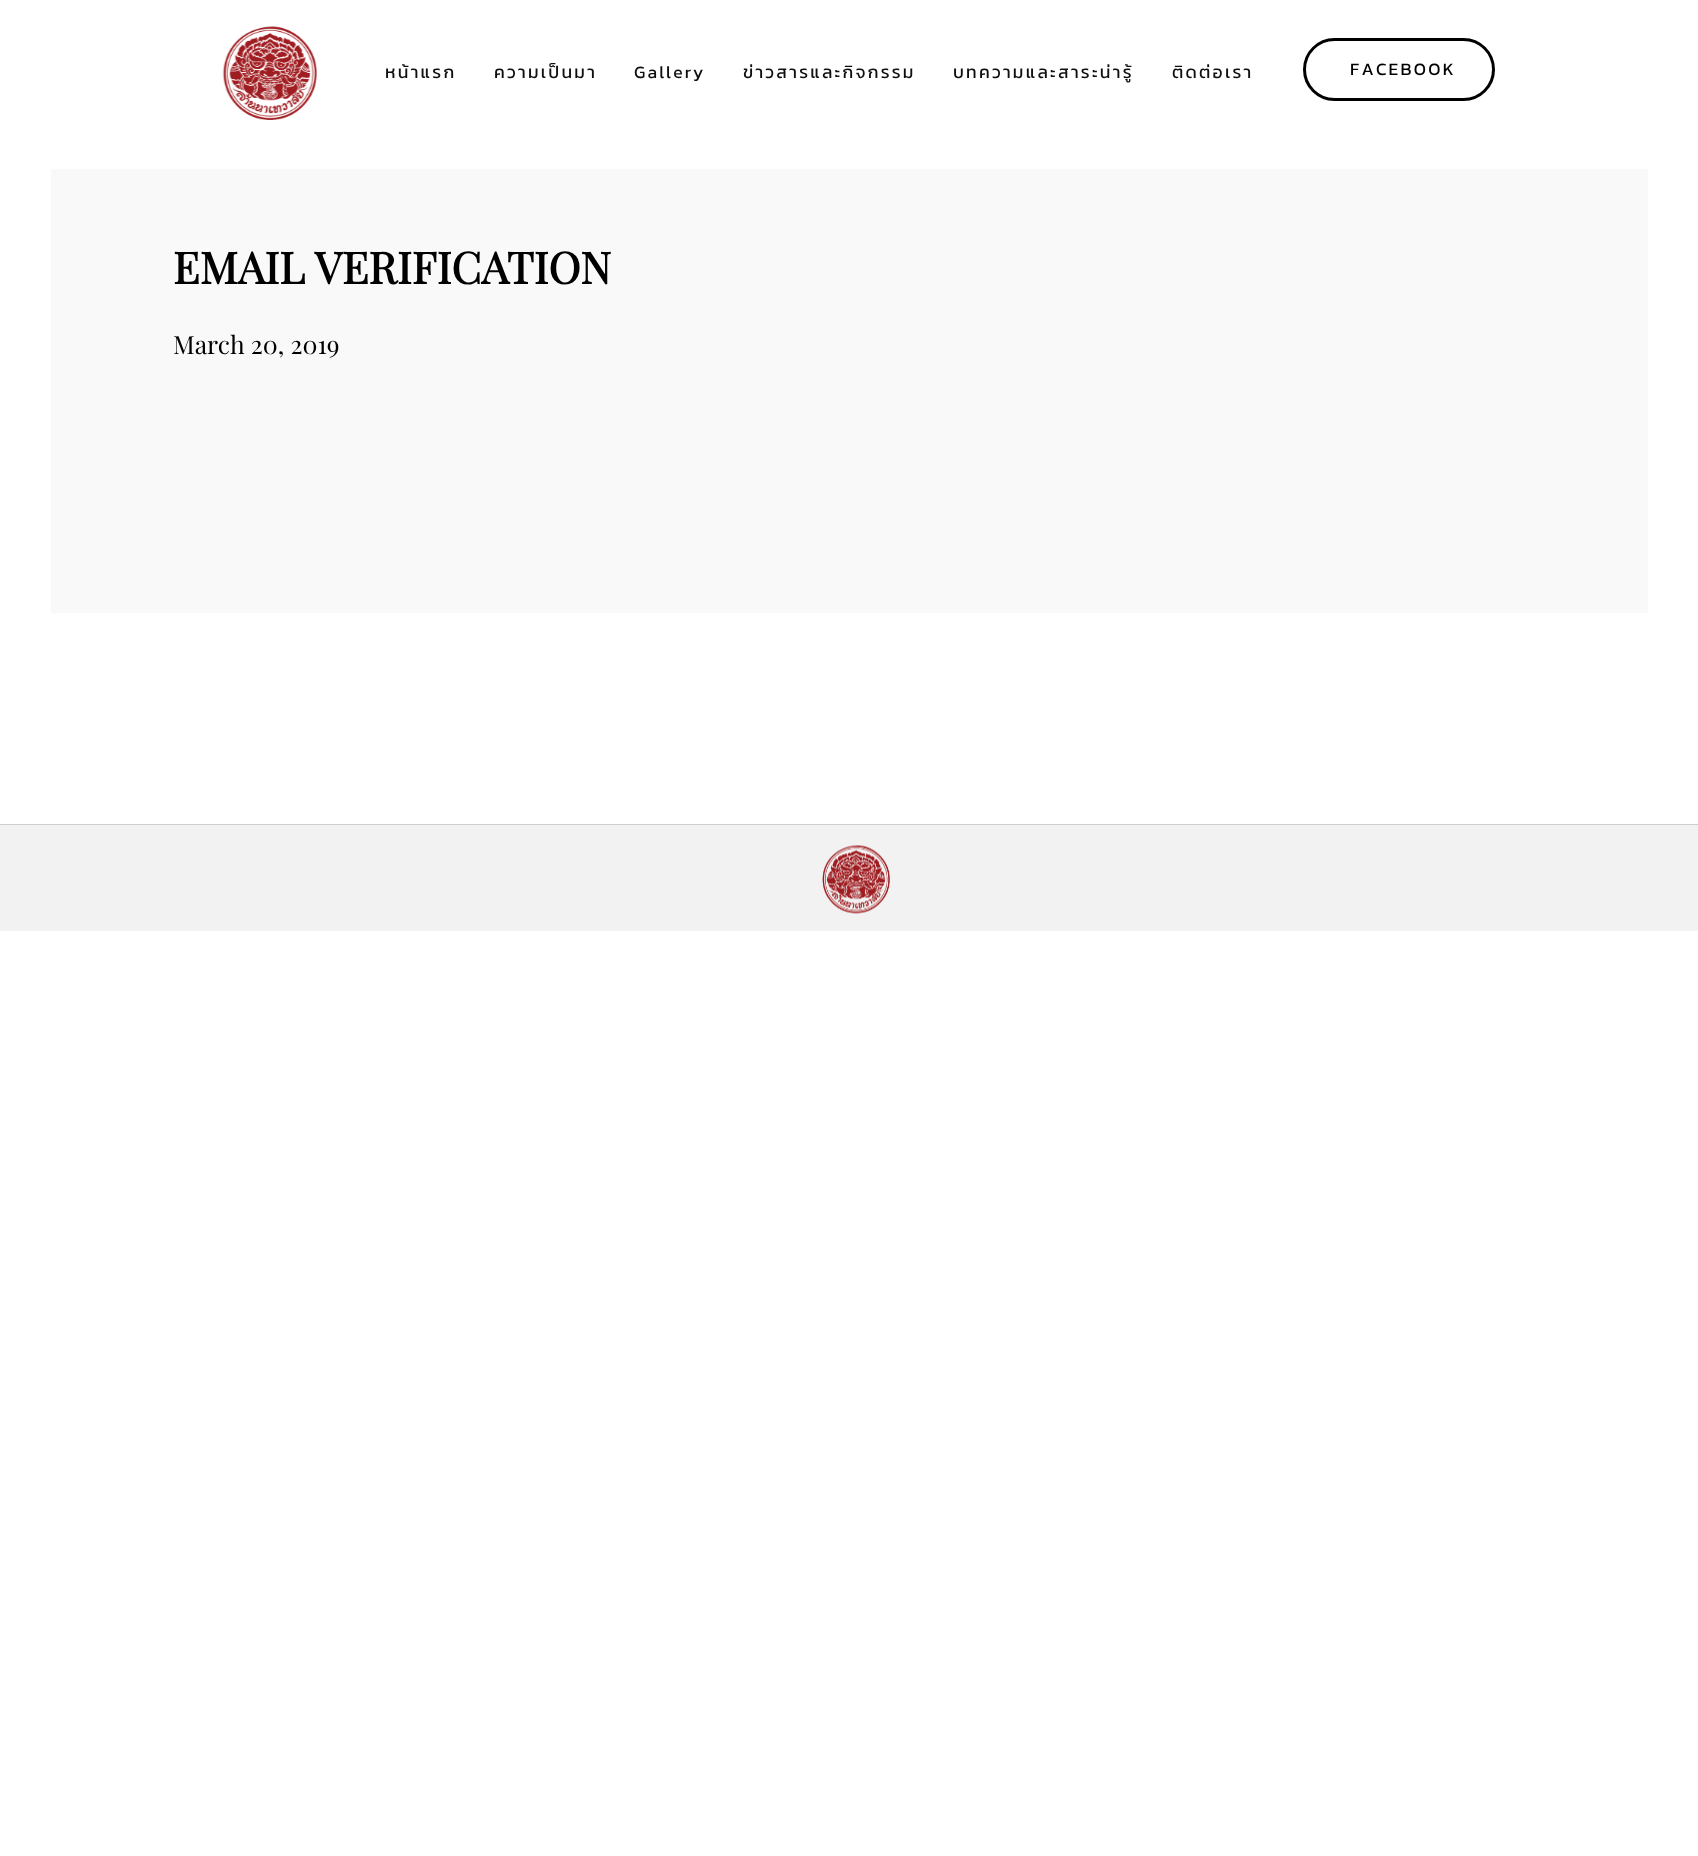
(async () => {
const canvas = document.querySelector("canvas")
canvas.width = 1698
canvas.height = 1856
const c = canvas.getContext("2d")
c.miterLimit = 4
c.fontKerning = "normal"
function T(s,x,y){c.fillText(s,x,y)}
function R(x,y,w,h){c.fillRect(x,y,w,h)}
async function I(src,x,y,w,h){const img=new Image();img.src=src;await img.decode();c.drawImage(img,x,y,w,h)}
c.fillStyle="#fff"
R(0,0,1698,1856)
await I("1.png",222,26,95,94)
c.letterSpacing="2.25px"
c.font="17.5px Kanit"
c.fillStyle="#0f0f0f"
T("หน้าแรก",385,78)
T("ความเป็นมา",494,78)
T("Gallery",634,78)
T("ข่าวสารและกิจกรรม",743,78)
T("บทความและสาระน่ารู้",953,78)
T("ติดต่อเรา",1172,78)
c.beginPath()
c.roundRect(1304.5,39.5,189,60,30)
c.strokeStyle="#000"
c.lineWidth=3
c.stroke()
c.fillStyle="#000"
T("FACEBOOK",1350,75)
c.fillStyle="#f9f9f9"
R(51,169,1597,444)
c.letterSpacing="0px"
c.font="bold 43.75px Playfair Display"
c.fillStyle="#000"
T("EMAIL VERIFICATION",173,284)
c.font="25px Playfair Display"
T("March 20, 2019",173,354)
c.fillStyle="#cfcfcf"
R(0,824,1698,1)
c.fillStyle="#f2f2f2"
R(0,825,1698,106)
await I("2.png",822,845,68,69)
})()
